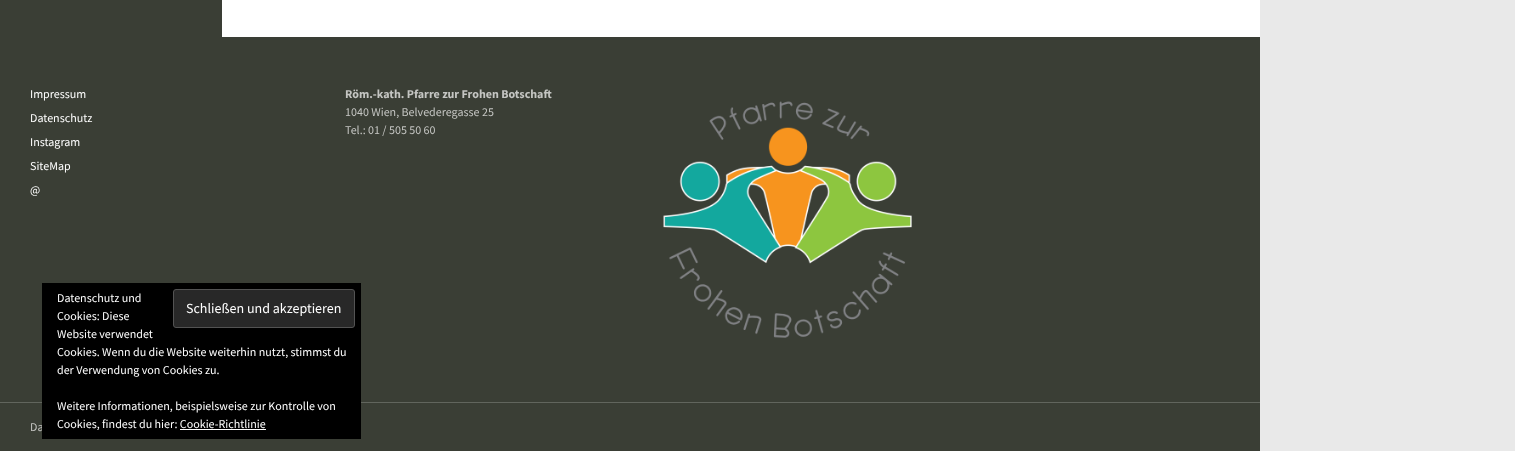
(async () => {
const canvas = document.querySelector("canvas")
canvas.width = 1515
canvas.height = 451
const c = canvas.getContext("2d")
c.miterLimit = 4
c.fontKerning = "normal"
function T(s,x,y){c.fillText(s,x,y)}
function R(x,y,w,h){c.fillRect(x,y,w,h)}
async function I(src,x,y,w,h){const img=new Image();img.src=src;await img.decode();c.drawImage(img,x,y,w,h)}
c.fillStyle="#e9e9e9"
R(0,0,1515,451)
c.fillStyle="#fff"
R(222,0,1038,37)
c.fillStyle="#3a3e35"
R(0,0,222,37)
R(0,37,1260,414)
c.font="12px Source Sans Pro"
c.fillStyle="#fff"
T("Impressum",30,98)
T("Datenschutz",30,122)
T("Instagram",30,146)
T("SiteMap",30,170)
T("@",30,194)
c.font="bold 12px Source Sans Pro"
c.fillStyle="#c4c5c2"
T("Röm.-kath. Pfarre zur Frohen Botschaft",345,98)
c.font="12px Source Sans Pro"
T("1040 Wien, Belvederegasse 25",345,116)
T("Tel.: 01 / 505 50 60",345,134)
await I("1.png",663,101,249,237)
c.fillStyle="#61655d"
R(0,402,1260,1)
c.fillStyle="#c4c5c2"
T("Da",30,431)
c.fillStyle="#000"
R(42,283,319,156)
c.fillStyle="#fff"
T("Datenschutz und",57,302)
T("Cookies: Diese",57,320)
c.fillStyle="#282828"
c.beginPath()
c.roundRect(173.5,289.5,181,38,2.5)
c.fill()
c.strokeStyle="#535353"
c.stroke()
c.font="14px Source Sans Pro"
c.fillStyle="#fff"
T("Schließen und akzeptieren",186,313)
c.font="12px Source Sans Pro"
T("Website verwendet",57,338)
T("Cookies. Wenn du die Website weiterhin nutzt, stimmst du",57,356)
T("der Verwendung von Cookies zu.",57,374)
T("Weitere Informationen, beispielsweise zur Kontrolle von",57,410)
T("Cookies, findest du hier: Cookie-Richtlinie",57,428)
R(180,429,86,1)
})()
